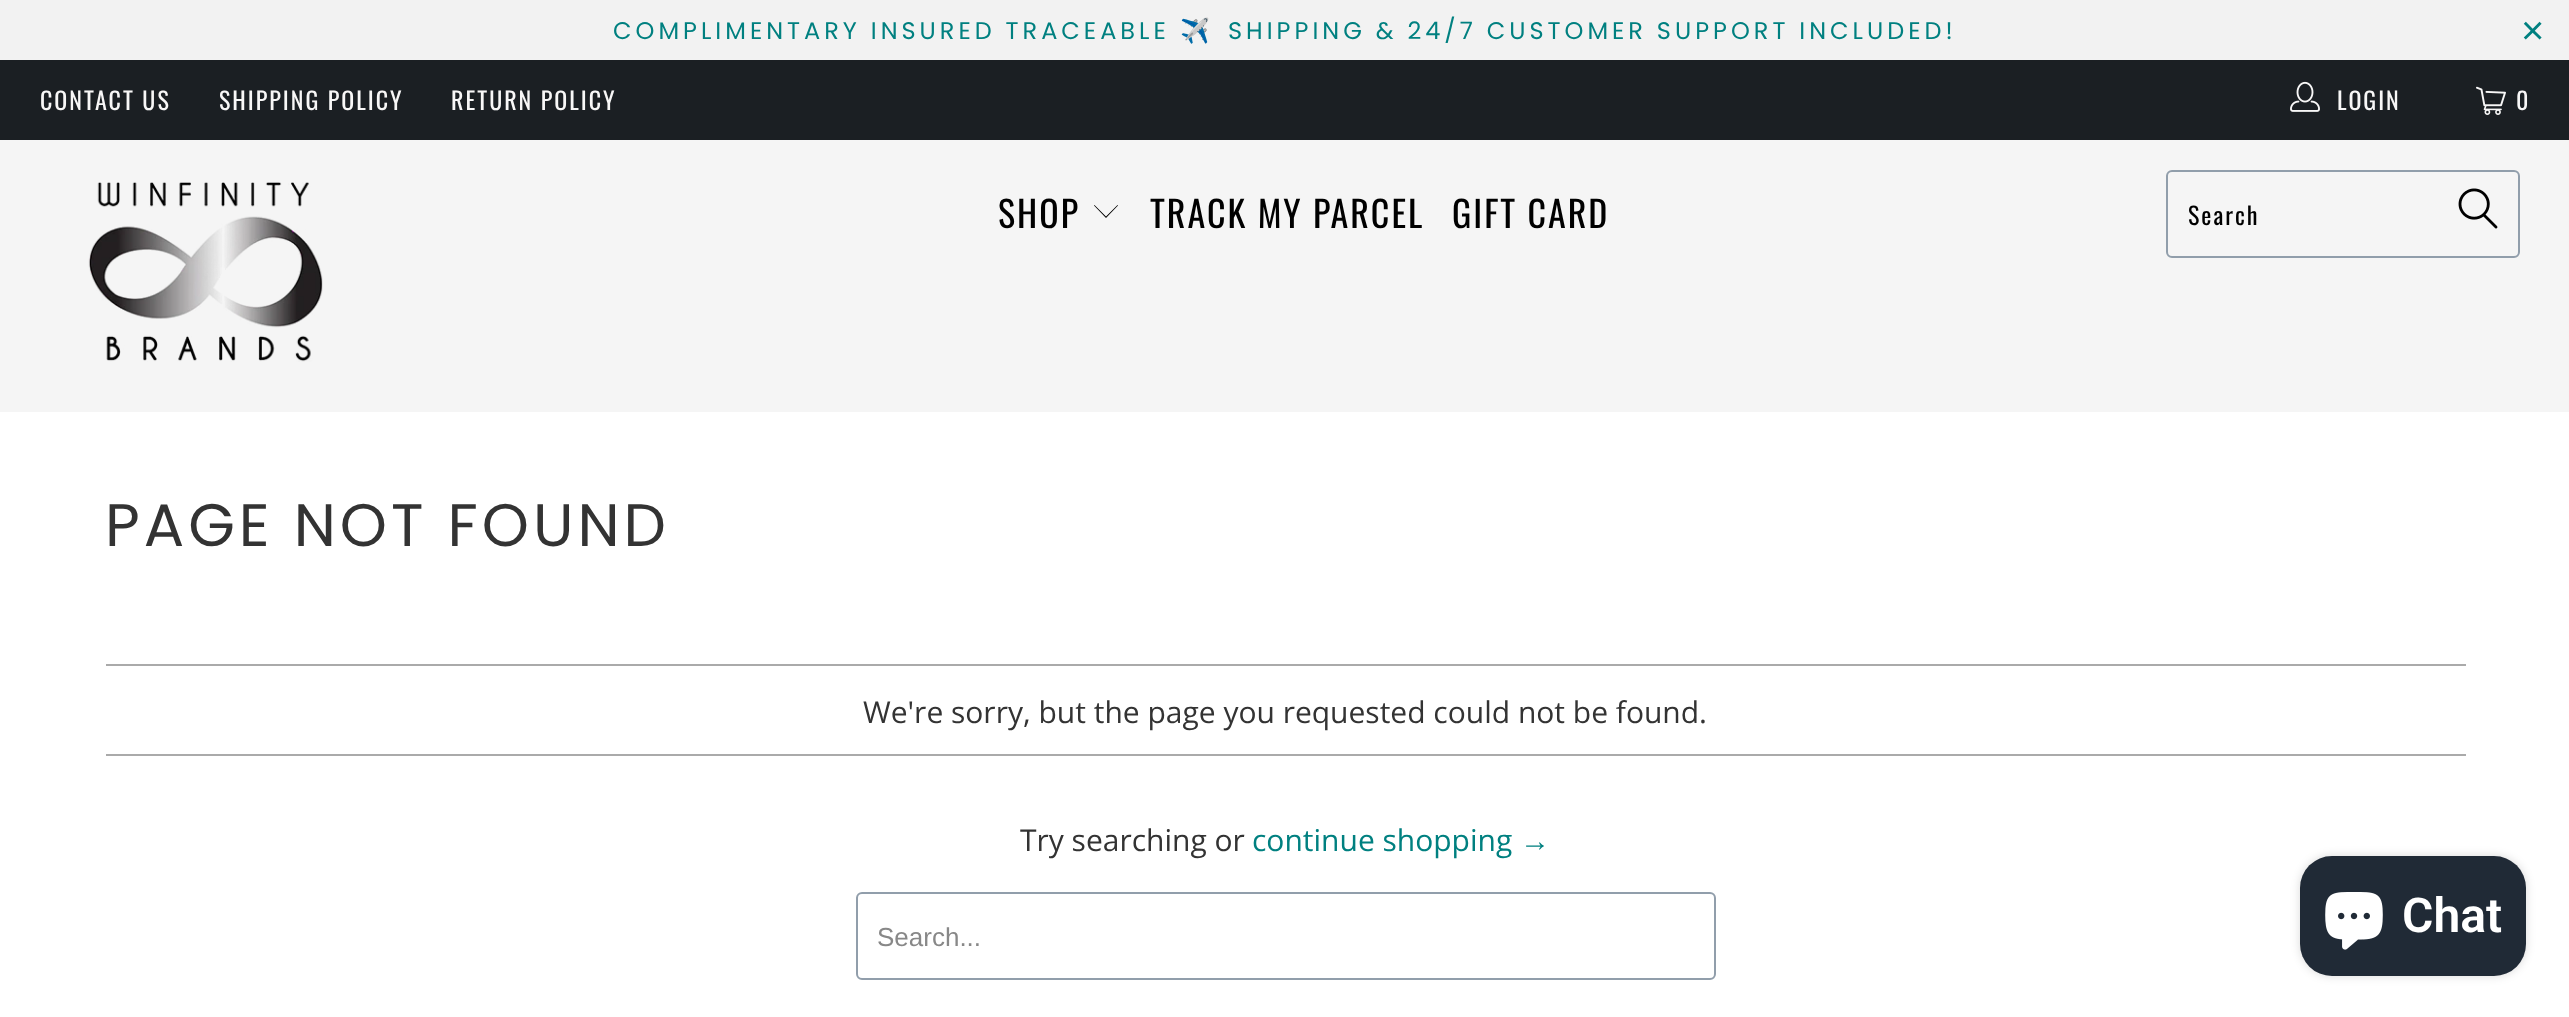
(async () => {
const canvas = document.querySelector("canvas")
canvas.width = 2569
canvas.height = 1017
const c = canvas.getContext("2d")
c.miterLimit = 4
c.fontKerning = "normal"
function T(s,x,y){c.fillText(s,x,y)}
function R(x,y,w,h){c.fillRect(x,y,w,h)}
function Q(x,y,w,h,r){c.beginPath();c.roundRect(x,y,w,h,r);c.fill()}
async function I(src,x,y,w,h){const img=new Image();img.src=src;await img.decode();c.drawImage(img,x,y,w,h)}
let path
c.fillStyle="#fff"
R(0,0,2569,1017)
c.fillStyle="#f2f2f2"
R(0,0,2569,60)
c.letterSpacing="4px"
c.wordSpacing="-0.5px"
c.font="24px Poppins"
c.fillStyle="#008080"
T("COMPLIMENTARY INSURED TRACEABLE",613,39)
c.wordSpacing="0px"
c.font="24px Noto Color Emoji"
T("✈️",1180,39)
c.wordSpacing="-0.5px"
c.font="24px Poppins"
T("SHIPPING & 24/7 CUSTOMER SUPPORT INCLUDED!",1228,39)
c.wordSpacing="0px"
c.font="40px Liberation Sans"
T("×",2521,44)
c.fillStyle="#1b1f23"
R(0,60,2569,80)
c.letterSpacing="2px"
c.font="24px Oswald"
c.fillStyle="#f8f7f7"
T("CONTACT US",40,110)
T("SHIPPING POLICY",219,110)
T("RETURN POLICY",451,110)
await I("1.png",2290,81,30,31)
T("LOGIN",2337,110)
await I("2.png",2476,86,30,29)
T("0",2516,110)
c.fillStyle="#f5f5f5"
R(0,140,2569,272)
await I("3.png",88,182,235,180)
c.font="36px Oswald"
c.fillStyle="#000"
T("SHOP",998,228)
path = new Path2D("M1106 218l-12-12.5l.5-.5l11.5 11.5l11.5-11.5l.5 .5z")
c.fill(path)
T("TRACK MY PARCEL",1150,228)
T("GIFT CARD",1452,228)
c.beginPath()
c.roundRect(2167,171,352,86,5)
c.strokeStyle="#919eab"
c.lineWidth=2
c.stroke()
c.font="24px Oswald"
T("Search",2188,225)
await I("4.png",2458,188,40,41)
c.letterSpacing="4px"
c.font="60px Poppins"
c.fillStyle="#333"
T("PAGE NOT FOUND",105,546)
c.fillStyle="#aaa"
R(106,664,2360,2)
R(106,754,2360,2)
c.letterSpacing="0px"
c.font="30px Open Sans"
c.fillStyle="#333"
T("We're sorry, but the page you requested could not be found.",863,723)
T("Try searching or",1020,851)
c.fillStyle="#008080"
T("continue shopping",1252,851)
c.font="30px Liberation Sans"
T("→",1520,851)
c.beginPath()
c.roundRect(857,893,858,86,5)
c.stroke()
c.font="26px Liberation Sans"
c.fillStyle="#888"
T("Search...",877,946)
c.fillStyle="#00000026"
c.filter="blur(5px)"
c.beginPath()
c.roundRect(2300,856,226,120,32)
c.fill()
c.filter="none"
c.fillStyle="#202a36"
Q(2300,856,226,120,32)
await I("5.png",2325,892,58,58)
c.font="600 48px Roboto"
c.fillStyle="#fff"
T("Chat",2402,932)
})()
